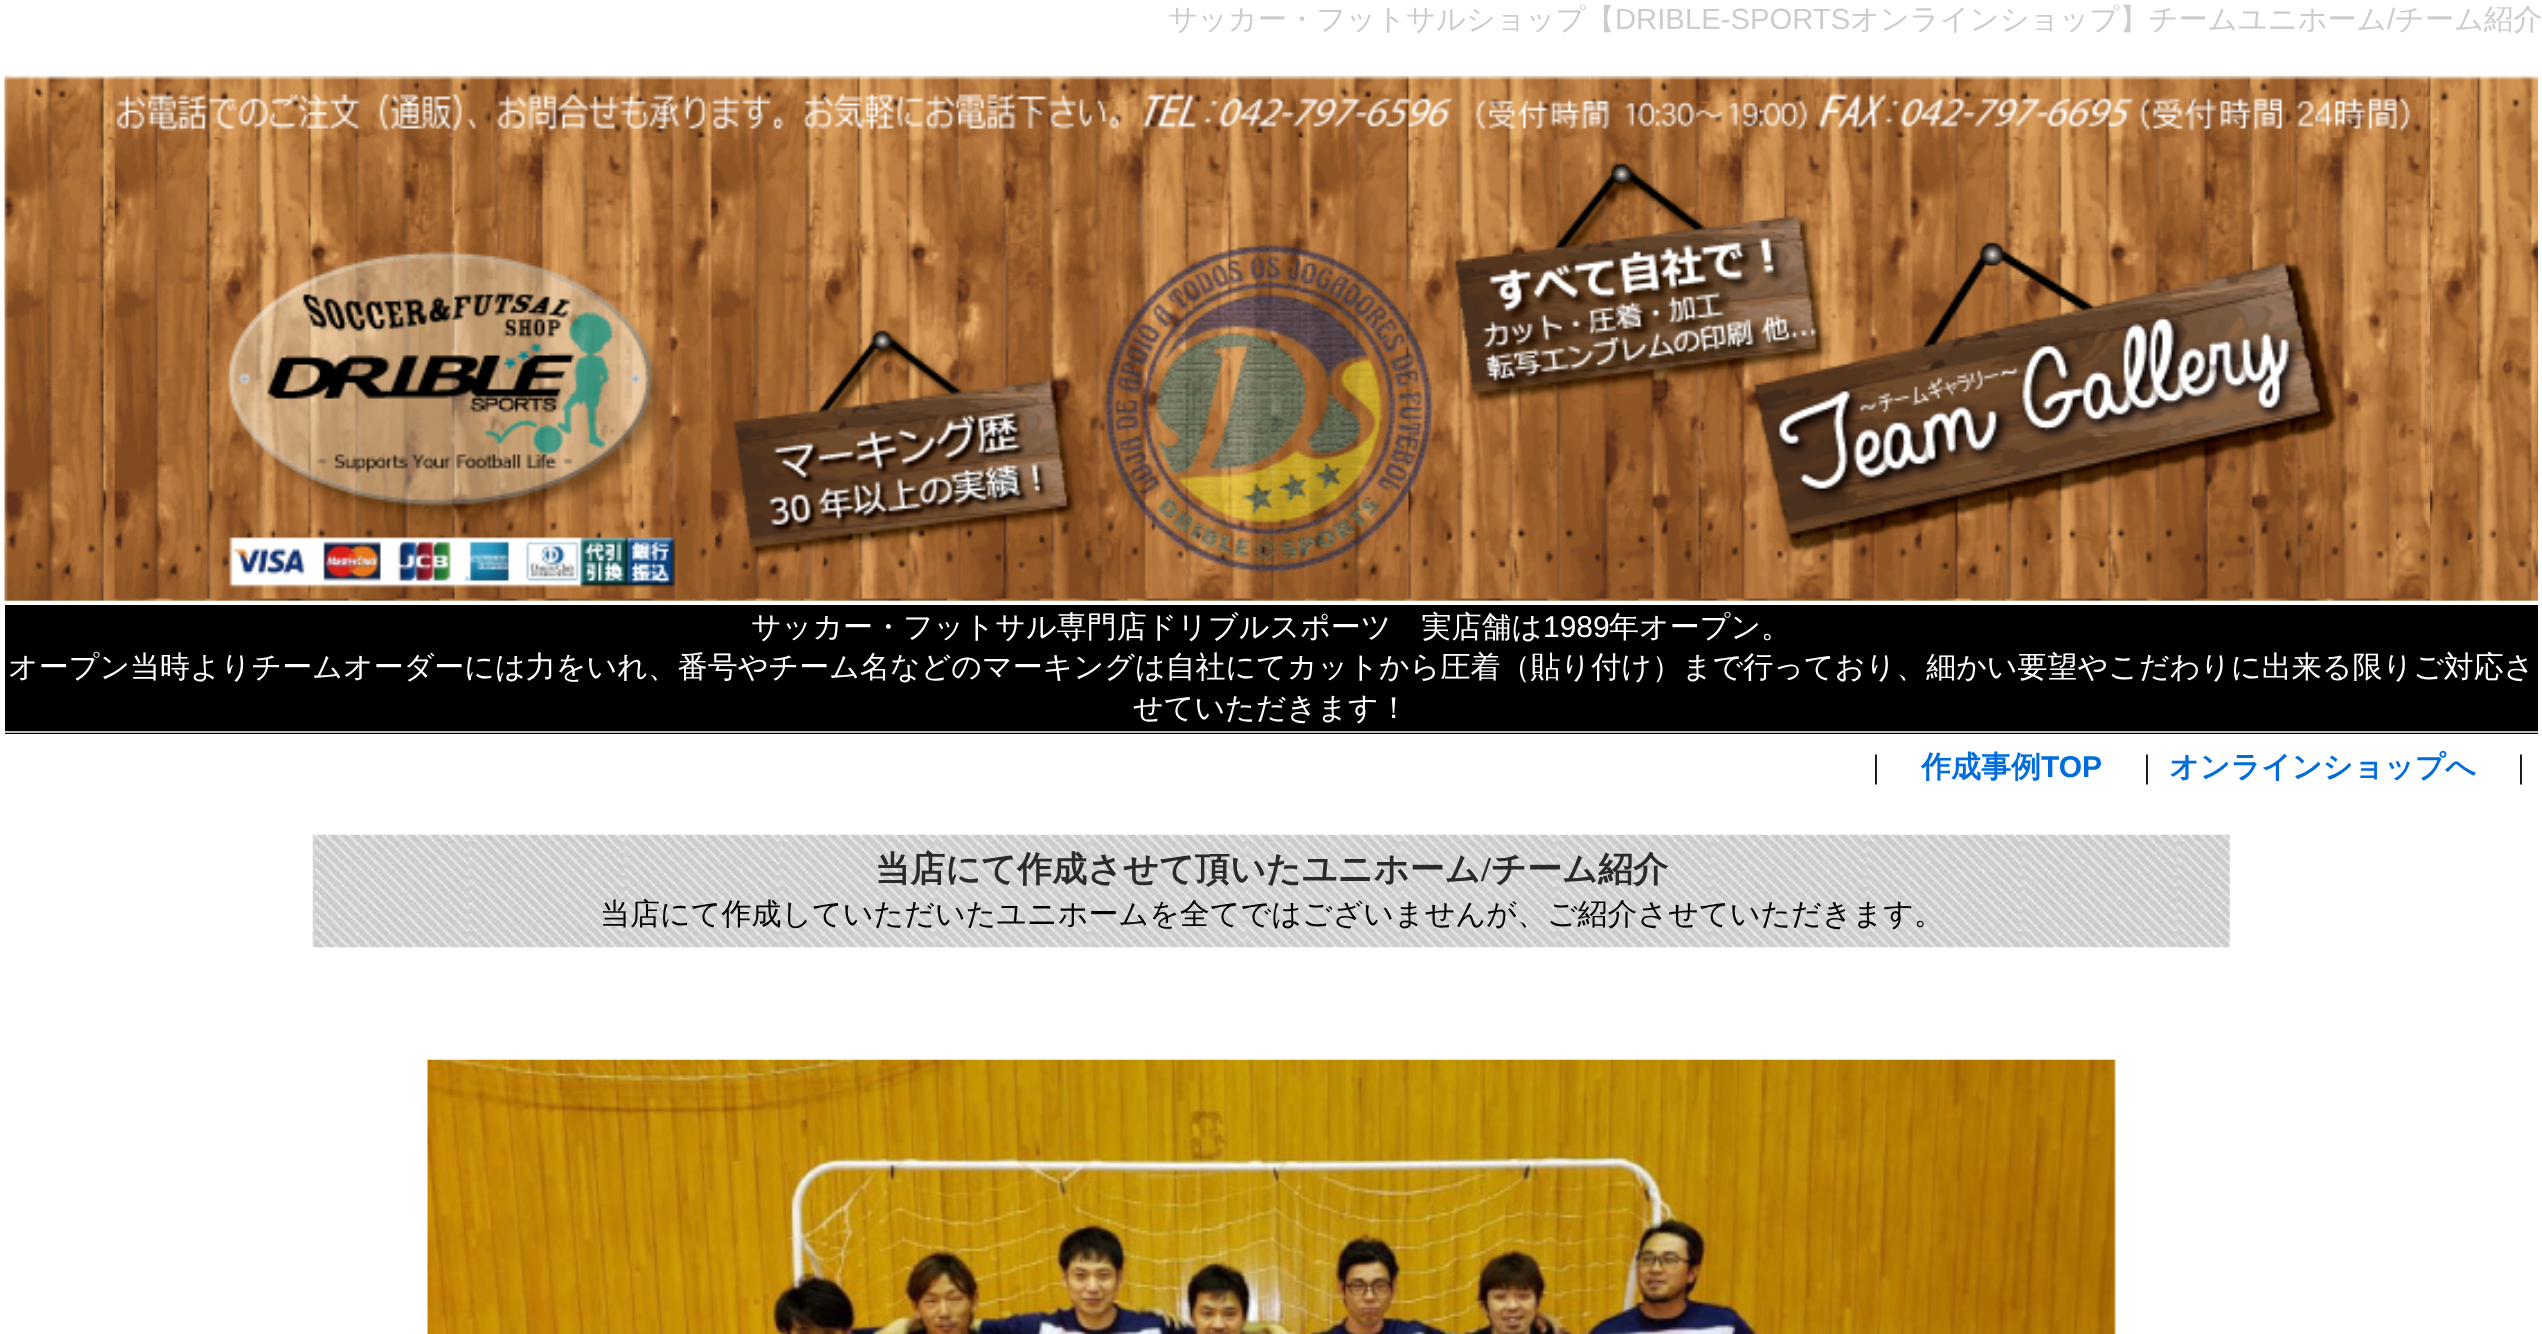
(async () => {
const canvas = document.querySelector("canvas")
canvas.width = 2542
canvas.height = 1334
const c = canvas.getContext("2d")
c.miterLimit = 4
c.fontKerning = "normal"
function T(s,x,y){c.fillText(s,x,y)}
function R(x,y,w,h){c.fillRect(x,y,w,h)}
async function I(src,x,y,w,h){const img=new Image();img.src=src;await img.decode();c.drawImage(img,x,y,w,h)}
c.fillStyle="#fff"
R(0,0,2542,1334)
c.font="500 29.25px WenQuanYi Zen Hei"
c.fillStyle="#ccc"
T("サッカー・フットサルショップ【",1168,29)
c.font="29.25px Liberation Sans"
T("DRIBLE-SPORTS",1615,29)
c.font="500 29.25px WenQuanYi Zen Hei"
T("オンラインショップ】チームユニホーム",1850,29)
c.font="29.25px Liberation Sans"
T("/",2387,29)
c.font="500 29.25px WenQuanYi Zen Hei"
T("チーム紹介",2395,29)
await I("1.png",4,74,2534,527)
await I("2.png",114,76,2316,523)
c.fillStyle="#000"
R(5,605,2533,129)
c.fillStyle="#c0c0c0"
R(5,731,2533,2)
c.font="500 30px WenQuanYi Zen Hei"
c.fillStyle="#fff"
T("サッカー・フットサル専門店ドリブルスポーツ　実店舗は",751,637)
c.font="30px Liberation Sans"
T("1989",1543,637)
c.font="500 30px WenQuanYi Zen Hei"
T("年オープン。",1609,637)
T("オープン当時よりチームオーダーには力をいれ、番号やチーム名などのマーキングは自社にてカットから圧着（貼り付け）まで行っており、細かい要望やこだわりに出来る限りご対応さ",8,677)
T("せていただきます！",1133,718)
c.fillStyle="#000"
T("｜",1861,777)
c.font="bold 30px WenQuanYi Zen Hei"
c.fillStyle="#006ddb"
T("作成事例",1921,777)
c.font="bold 30px Liberation Sans"
T("TOP",2041,777)
c.font="500 30px WenQuanYi Zen Hei"
c.fillStyle="#000"
T("｜",2132,777)
c.font="bold 30px WenQuanYi Zen Hei"
c.fillStyle="#006ddb"
T("オンラインショップへ",2169,777)
c.font="500 30px WenQuanYi Zen Hei"
c.fillStyle="#000"
T("｜",2506,777)
await I("3.png",312,834,1918,114)
c.font="bold 35.1px WenQuanYi Zen Hei"
c.fillStyle="#2a2a2a"
T("当店にて作成させて頂いたユニホーム",875,881)
c.font="bold 35.1px Liberation Serif"
T("/",1481,881)
c.font="bold 35.1px WenQuanYi Zen Hei"
T("チーム紹介",1491,881)
c.font="500 30px WenQuanYi Zen Hei"
c.fillStyle="#000"
T("当店にて作成していただいたユニホームを全てではございませんが、ご紹介させていただきます。",600,924)
await I("4.png",427,1059,1690,275)
})()
